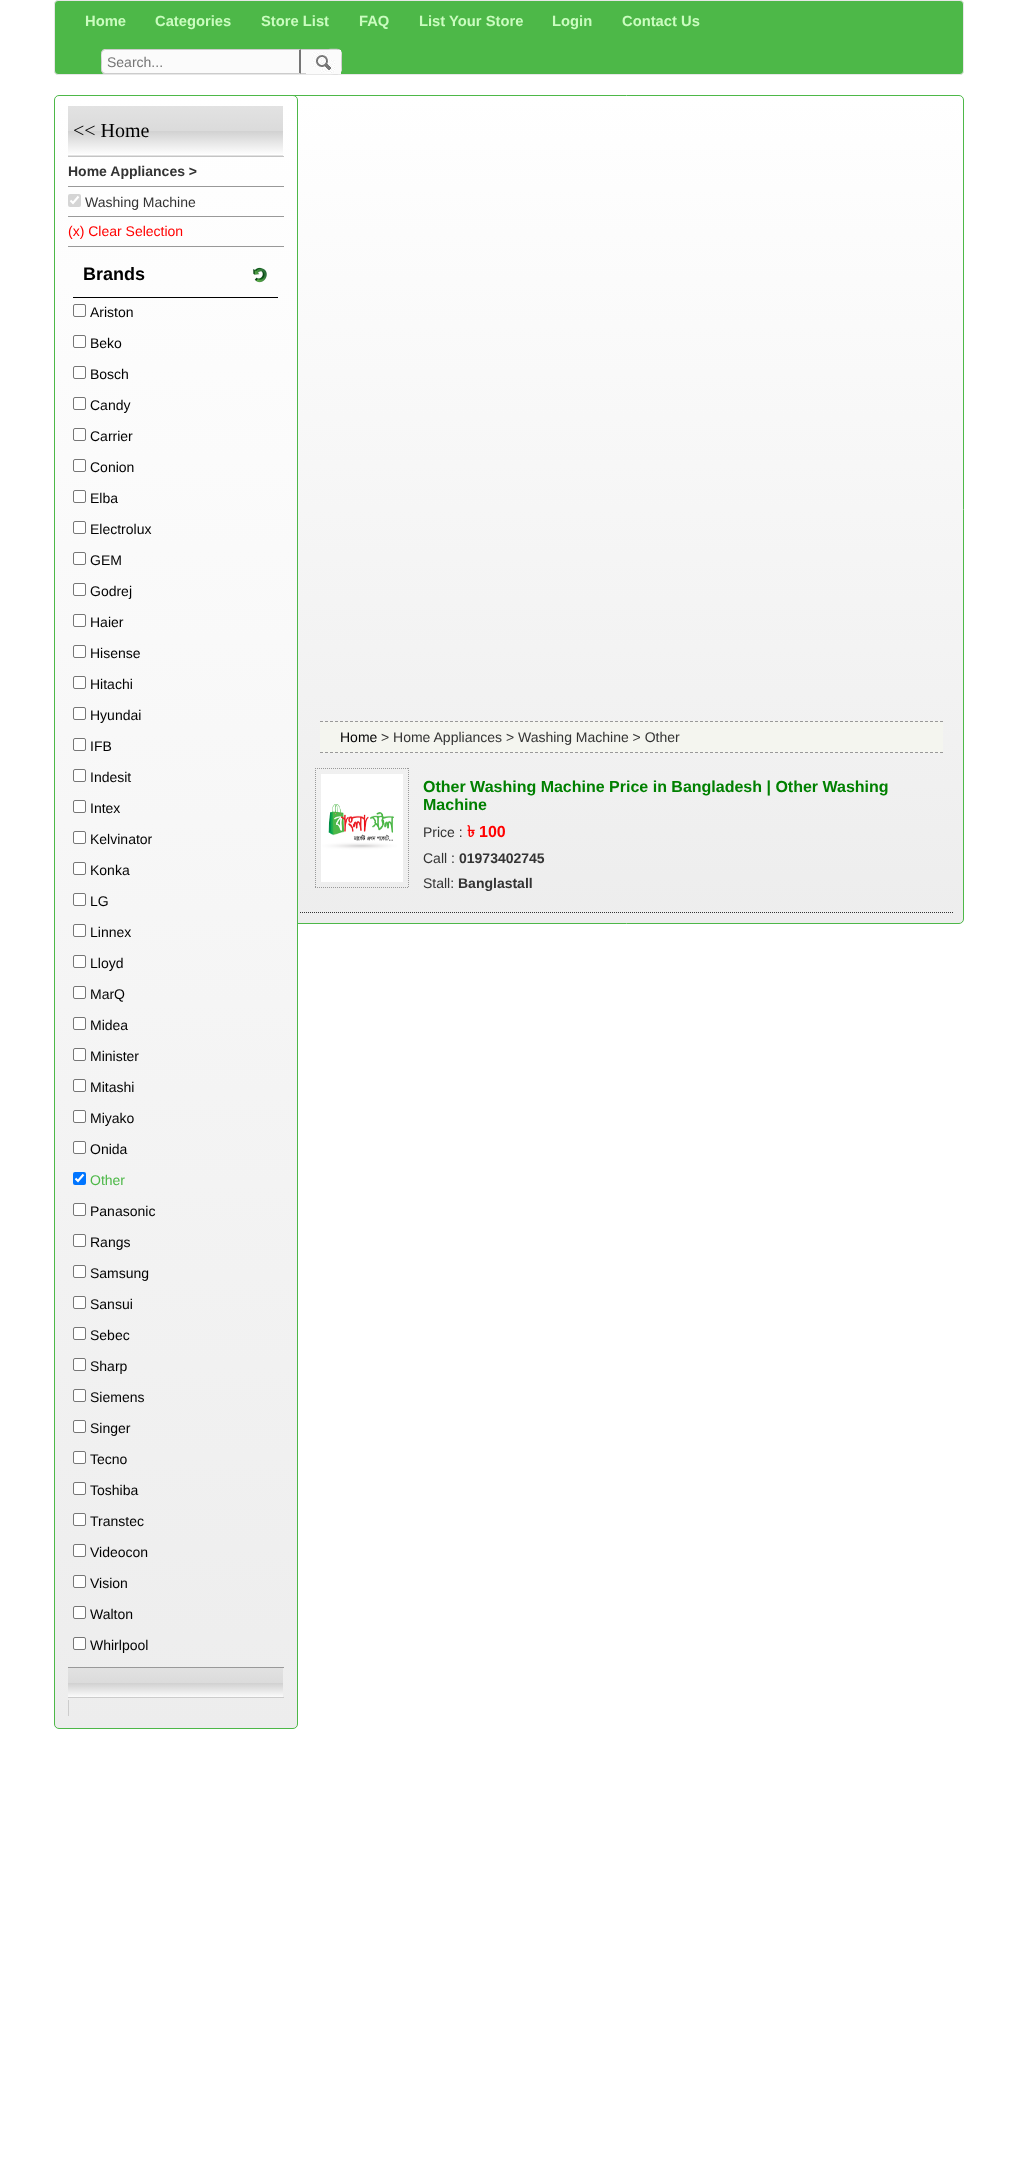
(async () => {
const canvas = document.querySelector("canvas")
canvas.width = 1017
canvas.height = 2174
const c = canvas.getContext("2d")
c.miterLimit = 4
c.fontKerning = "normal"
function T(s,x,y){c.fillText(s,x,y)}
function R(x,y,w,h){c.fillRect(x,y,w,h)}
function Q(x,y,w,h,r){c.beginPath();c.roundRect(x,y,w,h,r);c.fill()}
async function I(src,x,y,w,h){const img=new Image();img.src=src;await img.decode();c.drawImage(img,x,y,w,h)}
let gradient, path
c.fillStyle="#fff"
R(0,0,1017,2174)
c.fillStyle="#4db848"
c.beginPath()
c.roundRect(54.5,.5,909,74,3.5)
c.fill()
c.strokeStyle="#e7e7e7"
c.stroke()
c.font="bold 14.75px Liberation Sans"
c.fillStyle="#cafcbf"
T("Home",85,26)
T("Categories",155,26)
T("Store List",261,26)
T("FAQ",359,26)
T("List Your Store",419,26)
T("Login",552,26)
T("Contact Us",622,26)
c.fillStyle="#fbfbfb"
c.beginPath()
c.roundRect(101,49,200,25,[5,0,0,5])
c.fill()
c.fillStyle="#ccc"
path = new Path2D("M106 49c-2 0-3 1-4 1l1 1c1-1 2-1 3-1h193l2-1z")
c.fill(path)
c.fillStyle="#767676"
path = new Path2D("M301 49l-2 1v23l2 1z")
c.fill(path)
c.fillStyle="#ccc"
path = new Path2D("M301 74l-2-1h-194l-2-1l-1 1c1 1 2 1 4 1z")
c.fill(path)
path = new Path2D("M101 54v15c0 1.5 .5 3 1.5 3.5l.5-.5c-.5-.5-1-1.5-1-2.5c-.5-2.5 0-5 0-7.5l-.5-7c.5-1.5 .5-3 1.5-4l-.5-.5c-1 .5-1.5 2-1.5 3.5z")
c.fill(path)
c.font="14px Liberation Sans"
c.fillStyle="#757575"
T("Search...",107,67)
c.fillStyle="#fbfbfb"
c.beginPath()
c.roundRect(301,49,41,25,[0,5,5,0])
c.fill()
c.fillStyle="#ccc"
path = new Path2D("M301 49h24c16 0 17-3 17 13c0 15-1 12-17 12h-24zm0 1h24c15 0 16-3 16 12c0 14-1 11-16 11h-24z")
c.fill(path,"evenodd")
c.fillStyle="#fbfbfb"
R(306,50,35,24)
await I("1.png",312,52,23,21)
c.save()
c.beginPath()
c.roundRect(289,95,675,829,5)
c.clip()
gradient = c.createLinearGradient(627,96,627,923)
gradient.addColorStop(0,"#fff")
gradient.addColorStop(1,"#ededed")
c.fillStyle = gradient
R(296,96,668,827)
c.restore()
c.beginPath()
c.roundRect(289.5,95.5,674,828,4.5)
c.strokeStyle="#4db848"
c.stroke()
c.save()
c.beginPath()
c.roundRect(54,95,244,1634,5)
c.clip()
gradient = c.createLinearGradient(176,96,176,1728)
gradient.addColorStop(0,"#fff")
gradient.addColorStop(1,"#ededed")
c.fillStyle = gradient
R(54,96,244,1632)
c.restore()
c.beginPath()
c.roundRect(54.5,95.5,243,1633,4.5)
c.stroke()
c.fillStyle="#ccc"
R(68,1700,1,16)
gradient = c.createLinearGradient(176,106,176,155)
gradient.addColorStop(0,"#e2e2e2")
gradient.addColorStop(.5,"#dbdbdb")
gradient.addColorStop(.51,"#d1d1d1")
gradient.addColorStop(1,"#fefefe")
c.fillStyle = gradient
R(68,106,215,48)
gradient = c.createLinearGradient(176,155,176,204)
gradient.addColorStop(0,"#e2e2e2")
gradient.addColorStop(.5,"#dbdbdb")
gradient.addColorStop(.51,"#d1d1d1")
gradient.addColorStop(1,"#fefefe")
c.fillStyle = gradient
R(68,155,215,1)
c.fillStyle="#c4c4c4"
R(68,156,216,1)
c.font="20px Liberation Serif"
c.fillStyle="#000"
T("<< Home",73,137)
c.fillStyle="#999"
R(68,186,216,1)
c.font="bold 14px Liberation Sans"
c.fillStyle="#333"
T("Home Appliances >",68,176)
c.fillStyle="#999"
R(68,216,216,1)
c.fillStyle="#d5d5d5"
Q(68,194,13,13,2)
path = new Path2D("M70.5 200.5l2.5 2.5l5.5-6.5")
c.strokeStyle="#fff"
c.lineWidth=2.1
c.stroke(path)
c.font="14px Liberation Sans"
c.fillStyle="#333"
T("Washing Machine",85,207)
c.fillStyle="#999"
R(68,246,216,1)
c.fillStyle="#f00"
T("(x) Clear Selection",68,236)
c.fillStyle="#999"
R(68,1667,216,1)
c.fillStyle="#000"
R(73,297,205,1)
c.font="bold 18px Liberation Sans"
T("Brands",83,280)
await I("2.png",253,267,14,16)
c.beginPath()
c.roundRect(73.5,304.5,12,12,1.5)
c.strokeStyle="#767676"
c.lineWidth=1
c.stroke()
c.font="14px Liberation Sans"
T("Ariston",90,317)
c.fillStyle="#fff"
c.beginPath()
c.roundRect(73.5,335.5,12,12,1.5)
c.fill()
c.stroke()
c.fillStyle="#000"
T("Beko",90,348)
c.fillStyle="#fff"
c.beginPath()
c.roundRect(73.5,366.5,12,12,1.5)
c.fill()
c.stroke()
c.fillStyle="#000"
T("Bosch",90,379)
c.fillStyle="#fff"
c.beginPath()
c.roundRect(73.5,397.5,12,12,1.5)
c.fill()
c.stroke()
c.fillStyle="#000"
T("Candy",90,410)
c.fillStyle="#fff"
c.beginPath()
c.roundRect(73.5,428.5,12,12,1.5)
c.fill()
c.stroke()
c.fillStyle="#000"
T("Carrier",90,441)
c.fillStyle="#fff"
c.beginPath()
c.roundRect(73.5,459.5,12,12,1.5)
c.fill()
c.stroke()
c.fillStyle="#000"
T("Conion",90,472)
c.fillStyle="#fff"
c.beginPath()
c.roundRect(73.5,490.5,12,12,1.5)
c.fill()
c.stroke()
c.fillStyle="#000"
T("Elba",90,503)
c.fillStyle="#fff"
c.beginPath()
c.roundRect(73.5,521.5,12,12,1.5)
c.fill()
c.stroke()
c.fillStyle="#000"
T("Electrolux",90,534)
c.fillStyle="#fff"
c.beginPath()
c.roundRect(73.5,552.5,12,12,1.5)
c.fill()
c.stroke()
c.fillStyle="#000"
T("GEM",90,565)
c.fillStyle="#fff"
c.beginPath()
c.roundRect(73.5,583.5,12,12,1.5)
c.fill()
c.stroke()
c.fillStyle="#000"
T("Godrej",90,596)
c.fillStyle="#fff"
c.beginPath()
c.roundRect(73.5,614.5,12,12,1.5)
c.fill()
c.stroke()
c.fillStyle="#000"
T("Haier",90,627)
c.fillStyle="#fff"
c.beginPath()
c.roundRect(73.5,645.5,12,12,1.5)
c.fill()
c.stroke()
c.fillStyle="#000"
T("Hisense",90,658)
c.fillStyle="#fff"
c.beginPath()
c.roundRect(73.5,676.5,12,12,1.5)
c.fill()
c.stroke()
c.fillStyle="#000"
T("Hitachi",90,689)
c.fillStyle="#fff"
c.beginPath()
c.roundRect(73.5,707.5,12,12,1.5)
c.fill()
c.stroke()
c.fillStyle="#000"
T("Hyundai",90,720)
c.fillStyle="#fff"
c.beginPath()
c.roundRect(73.5,738.5,12,12,1.5)
c.fill()
c.stroke()
c.fillStyle="#000"
T("IFB",90,751)
c.fillStyle="#fff"
c.beginPath()
c.roundRect(73.5,769.5,12,12,1.5)
c.fill()
c.stroke()
c.fillStyle="#000"
T("Indesit",90,782)
c.fillStyle="#fff"
c.beginPath()
c.roundRect(73.5,800.5,12,12,1.5)
c.fill()
c.stroke()
c.fillStyle="#000"
T("Intex",90,813)
c.fillStyle="#fff"
c.beginPath()
c.roundRect(73.5,831.5,12,12,1.5)
c.fill()
c.stroke()
c.fillStyle="#000"
T("Kelvinator",90,844)
c.fillStyle="#fff"
c.beginPath()
c.roundRect(73.5,862.5,12,12,1.5)
c.fill()
c.stroke()
c.fillStyle="#000"
T("Konka",90,875)
c.fillStyle="#fff"
c.beginPath()
c.roundRect(73.5,893.5,12,12,1.5)
c.fill()
c.stroke()
c.fillStyle="#000"
T("LG",90,906)
c.fillStyle="#fff"
c.beginPath()
c.roundRect(73.5,924.5,12,12,1.5)
c.fill()
c.stroke()
c.fillStyle="#000"
T("Linnex",90,937)
c.fillStyle="#fff"
c.beginPath()
c.roundRect(73.5,955.5,12,12,1.5)
c.fill()
c.stroke()
c.fillStyle="#000"
T("Lloyd",90,968)
c.fillStyle="#fff"
c.beginPath()
c.roundRect(73.5,986.5,12,12,1.5)
c.fill()
c.stroke()
c.fillStyle="#000"
T("MarQ",90,999)
c.fillStyle="#fff"
c.beginPath()
c.roundRect(73.5,1017.5,12,12,1.5)
c.fill()
c.stroke()
c.fillStyle="#000"
T("Midea",90,1030)
c.fillStyle="#fff"
c.beginPath()
c.roundRect(73.5,1048.5,12,12,1.5)
c.fill()
c.stroke()
c.fillStyle="#000"
T("Minister",90,1061)
c.fillStyle="#fff"
c.beginPath()
c.roundRect(73.5,1079.5,12,12,1.5)
c.fill()
c.stroke()
c.fillStyle="#000"
T("Mitashi",90,1092)
c.fillStyle="#fff"
c.beginPath()
c.roundRect(73.5,1110.5,12,12,1.5)
c.fill()
c.stroke()
c.fillStyle="#000"
T("Miyako",90,1123)
c.fillStyle="#fff"
c.beginPath()
c.roundRect(73.5,1141.5,12,12,1.5)
c.fill()
c.stroke()
c.fillStyle="#000"
T("Onida",90,1154)
c.fillStyle="#0075ff"
Q(73,1172,13,13,2)
path = new Path2D("M75.5 1178.5l2.5 2.5l5.5-6.5")
c.strokeStyle="#fff"
c.lineWidth=2.1
c.stroke(path)
c.fillStyle="#4db848"
T("Other",90,1185)
c.fillStyle="#fff"
c.beginPath()
c.roundRect(73.5,1203.5,12,12,1.5)
c.fill()
c.strokeStyle="#767676"
c.lineWidth=1
c.stroke()
c.fillStyle="#000"
T("Panasonic",90,1216)
c.fillStyle="#fff"
c.beginPath()
c.roundRect(73.5,1234.5,12,12,1.5)
c.fill()
c.stroke()
c.fillStyle="#000"
T("Rangs",90,1247)
c.fillStyle="#fff"
c.beginPath()
c.roundRect(73.5,1265.5,12,12,1.5)
c.fill()
c.stroke()
c.fillStyle="#000"
T("Samsung",90,1278)
c.fillStyle="#fff"
c.beginPath()
c.roundRect(73.5,1296.5,12,12,1.5)
c.fill()
c.stroke()
c.fillStyle="#000"
T("Sansui",90,1309)
c.fillStyle="#fff"
c.beginPath()
c.roundRect(73.5,1327.5,12,12,1.5)
c.fill()
c.stroke()
c.fillStyle="#000"
T("Sebec",90,1340)
c.fillStyle="#fff"
c.beginPath()
c.roundRect(73.5,1358.5,12,12,1.5)
c.fill()
c.stroke()
c.fillStyle="#000"
T("Sharp",90,1371)
c.fillStyle="#fff"
c.beginPath()
c.roundRect(73.5,1389.5,12,12,1.5)
c.fill()
c.stroke()
c.fillStyle="#000"
T("Siemens",90,1402)
c.fillStyle="#fff"
c.beginPath()
c.roundRect(73.5,1420.5,12,12,1.5)
c.fill()
c.stroke()
c.fillStyle="#000"
T("Singer",90,1433)
c.fillStyle="#fff"
c.beginPath()
c.roundRect(73.5,1451.5,12,12,1.5)
c.fill()
c.stroke()
c.fillStyle="#000"
T("Tecno",90,1464)
c.fillStyle="#fff"
c.beginPath()
c.roundRect(73.5,1482.5,12,12,1.5)
c.fill()
c.stroke()
c.fillStyle="#000"
T("Toshiba",90,1495)
c.fillStyle="#fff"
c.beginPath()
c.roundRect(73.5,1513.5,12,12,1.5)
c.fill()
c.stroke()
c.fillStyle="#000"
T("Transtec",90,1526)
c.fillStyle="#fff"
c.beginPath()
c.roundRect(73.5,1544.5,12,12,1.5)
c.fill()
c.stroke()
c.fillStyle="#000"
T("Videocon",90,1557)
c.fillStyle="#fff"
c.beginPath()
c.roundRect(73.5,1575.5,12,12,1.5)
c.fill()
c.stroke()
c.fillStyle="#000"
T("Vision",90,1588)
c.fillStyle="#fff"
c.beginPath()
c.roundRect(73.5,1606.5,12,12,1.5)
c.fill()
c.stroke()
c.fillStyle="#000"
T("Walton",90,1619)
c.fillStyle="#fff"
c.beginPath()
c.roundRect(73.5,1637.5,12,12,1.5)
c.fill()
c.stroke()
c.fillStyle="#000"
T("Whirlpool",90,1650)
gradient = c.createLinearGradient(176,1668,176,1698)
gradient.addColorStop(0,"#e2e2e2")
gradient.addColorStop(.5,"#dbdbdb")
gradient.addColorStop(.51,"#d1d1d1")
gradient.addColorStop(1,"#fefefe")
c.fillStyle = gradient
R(68,1668,215,29)
c.fillStyle="#ccc"
R(68,1697,216,1)
c.fillStyle="#f4f5ef"
R(320,721,623,32)
path = new Path2D("M320 721.5h623")
c.strokeStyle="#999"
c.setLineDash([3,2])
c.stroke(path)
path = new Path2D("M320 752.5h623")
c.stroke(path)
c.fillStyle="#000"
T("Home",340,742)
c.fillStyle="#333"
T("> Home Appliances > Washing Machine > Other",381,742)
path = new Path2D("M300 912.5h653")
c.strokeStyle="#333"
c.setLineDash([1,1])
c.stroke(path)
path = new Path2D("M315 768.5h94")
c.strokeStyle="#999"
c.stroke(path)
path = new Path2D("M315.5 768v120")
c.stroke(path)
await I("3.png",321,774,82,108)
path = new Path2D("M408.5 768v120")
c.stroke(path)
path = new Path2D("M315 887.5h94")
c.stroke(path)
c.font="bold 16px Liberation Sans"
c.fillStyle="#008000"
T("Other Washing Machine Price in Bangladesh | Other Washing",423,792)
T("Machine",423,810)
c.font="14px Liberation Sans"
c.fillStyle="#333"
T("Price :",423,837)
c.font="bold 16px Lohit Bengali"
c.fillStyle="#f00"
T("৳",467,837)
c.font="bold 16px Liberation Sans"
T("100",479,837)
c.font="14px Liberation Sans"
c.fillStyle="#333"
T("Call :",423,863)
c.font="bold 14px Liberation Sans"
T("01973402745",459,863)
c.font="14px Liberation Sans"
T("Stall:",423,888)
c.font="bold 14px Liberation Sans"
T("Banglastall",458,888)
})()
